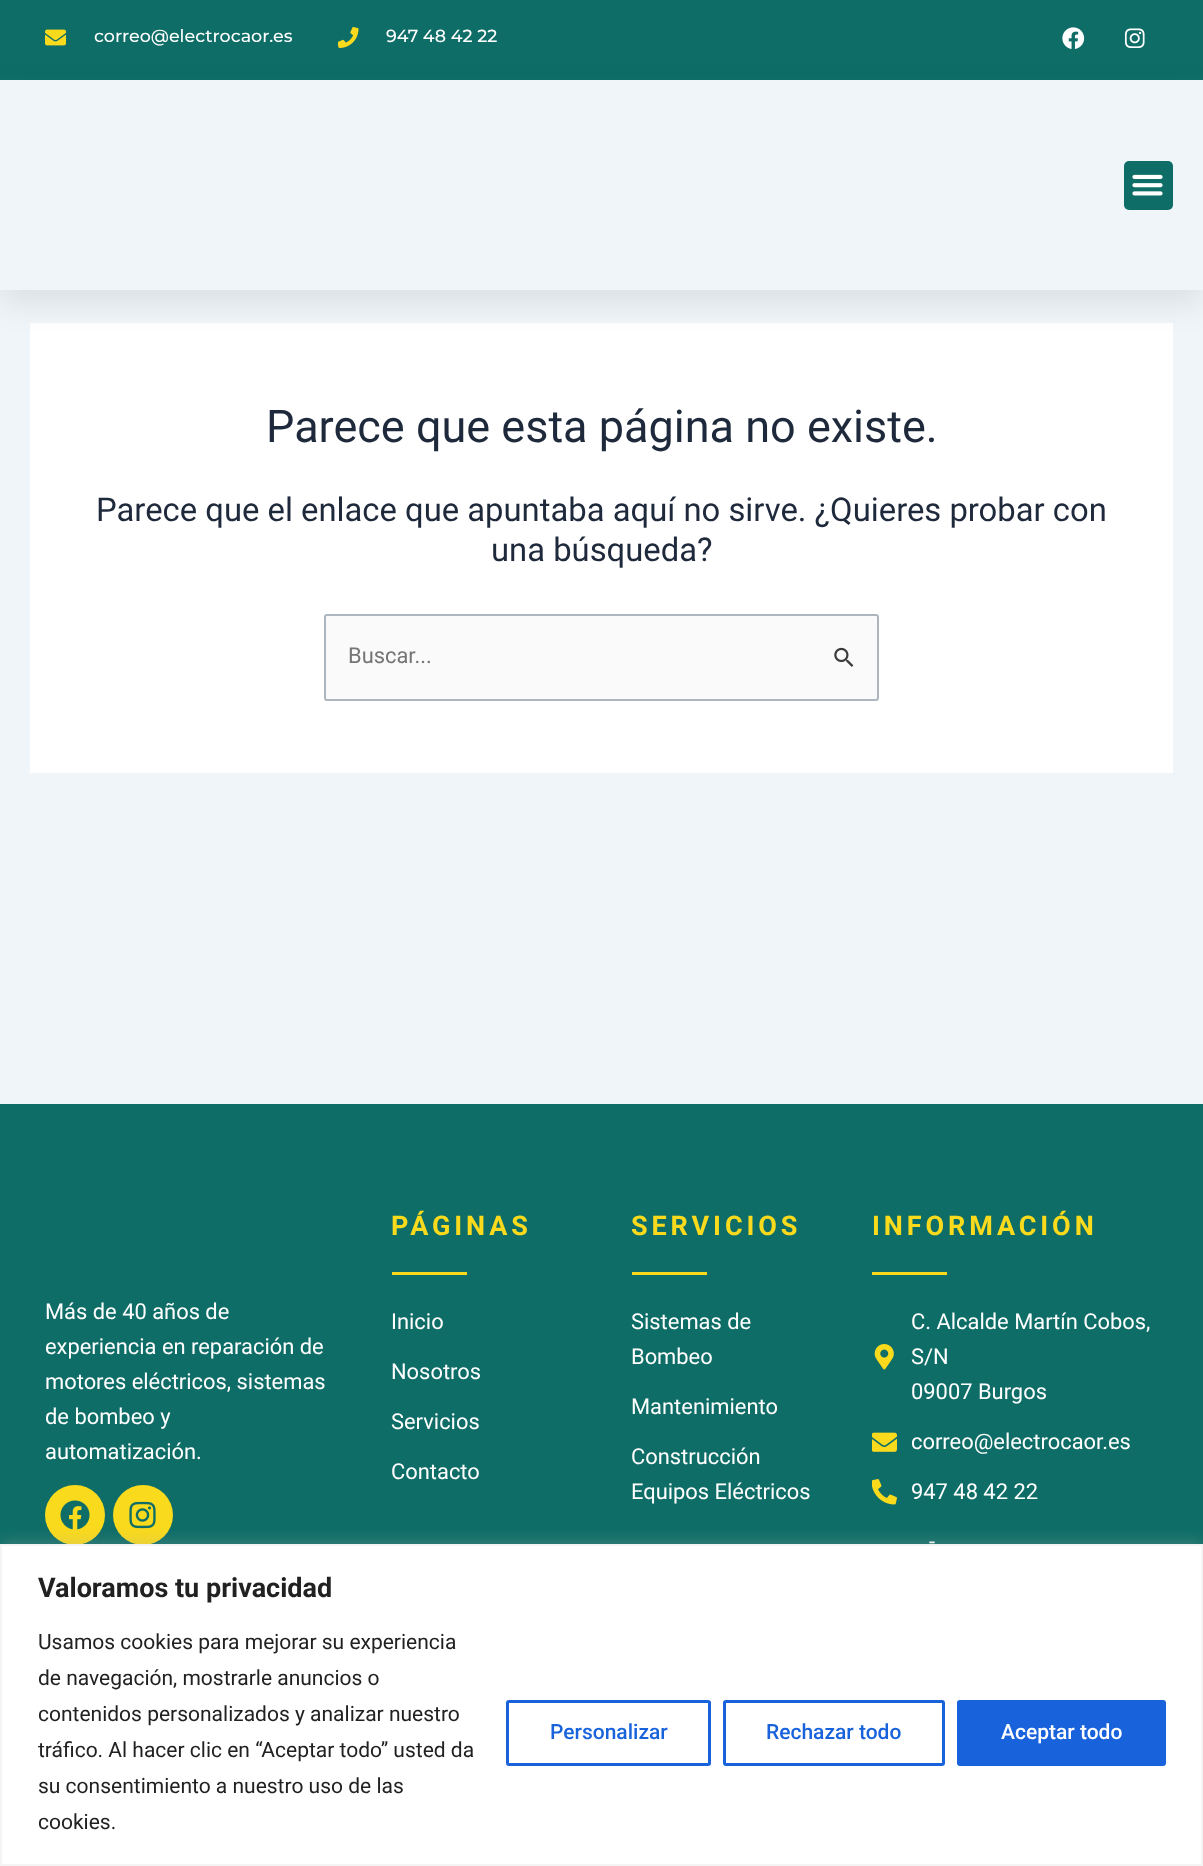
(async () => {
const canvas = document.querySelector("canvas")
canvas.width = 1203
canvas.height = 1866
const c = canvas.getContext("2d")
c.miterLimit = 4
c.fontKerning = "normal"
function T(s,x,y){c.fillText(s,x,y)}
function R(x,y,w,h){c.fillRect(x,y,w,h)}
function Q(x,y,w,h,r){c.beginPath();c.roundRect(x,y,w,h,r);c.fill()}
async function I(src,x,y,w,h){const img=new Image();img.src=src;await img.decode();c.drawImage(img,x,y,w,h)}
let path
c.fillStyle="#f0f5fa"
R(0,0,1203,1866)
c.fillStyle="#0e6d67"
R(0,0,1203,75)
await I("1.png",45,29,21,17)
c.font="500 17.5px Montserrat"
c.fillStyle="#fff"
T("correo@electrocaor.es",94,42)
await I("2.png",338,27,21,21)
T("947 48 42 22",386,42)
await I("3.png",1062,27,23,22)
await I("4.png",1124,28,21,20)
R(30,323,1143,450)
c.save()
path = new Path2D("M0 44h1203v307h-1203zm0 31h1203v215h-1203z")
c.clip(path,"evenodd")
c.fillStyle="#00000014"
c.filter="blur(15px)"
c.beginPath()
c.rect(0,90,1203,215)
c.fill()
c.filter="none"
c.restore()
c.fillStyle="#0e6d67"
R(0,75,1203,5)
Q(1124,161,49,49,5)
await I("5.png",1132,174,31,22)
c.font="45px Roboto"
c.fillStyle="#1e293b"
T("Parece que esta página no existe.",266,442)
c.font="32.8px Roboto"
T("Parece que el enlace que apuntaba aquí no sirve. ¿Quieres probar con",96,521)
T("una búsqueda?",491,561)
c.fillStyle="#fafafa"
c.beginPath()
c.roundRect(325,615,553,85,2)
c.fill()
c.strokeStyle="#adb6be"
c.lineWidth=2
c.stroke()
c.font="21.9px Roboto"
c.fillStyle="#757575"
T("Buscar...",348,663)
await I("6.png",834,647,20,20)
c.fillStyle="#0e6d67"
R(0,1104,1203,440)
c.fillStyle="#fff"
T("Más de 40 años de",45,1319)
T("experiencia en reparación de",45,1354)
T("motores eléctricos, sistemas",45,1389)
T("de bombeo y",45,1424)
T("automatización.",45,1459)
c.fillStyle="#f9da1d"
c.beginPath()
c.arc(75,1515,30,0,7)
c.fill()
await I("7.png",60,1500,30,30)
c.beginPath()
c.arc(143,1515,30,0,7)
c.fill()
await I("8.png",129,1501,27,28)
c.letterSpacing="3.9px"
c.font="bold 27px Roboto"
T("PÁGINAS",391,1235)
R(392,1272,75,3)
c.letterSpacing="0px"
c.font="21.9px Roboto"
c.fillStyle="#fff"
T("Inicio",391,1329)
T("Nosotros",391,1379)
T("Servicios",391,1429)
T("Contacto",391,1479)
c.letterSpacing="3.9px"
c.font="bold 27px Roboto"
c.fillStyle="#f9da1d"
T("SERVICIOS",631,1235)
R(632,1272,75,3)
c.letterSpacing="0px"
c.font="21.9px Roboto"
c.fillStyle="#fff"
T("Sistemas de",631,1329)
T("Bombeo",631,1364)
T("Mantenimiento",631,1414)
T("Construcción",631,1464)
T("Equipos Eléctricos",631,1499)
c.letterSpacing="3.9px"
c.font="bold 27px Roboto"
c.fillStyle="#f9da1d"
T("INFORMACIÓN",872,1235)
R(872,1272,75,3)
await I("9.png",874,1344,20,26)
c.letterSpacing="0px"
c.font="21.9px Roboto"
c.fillStyle="#fff"
T("C. Alcalde Martín Cobos,",911,1329)
T("S/N",911,1364)
T("09007 Burgos",911,1399)
await I("10.png",872,1432,25,20)
T("correo@electrocaor.es",911,1449)
await I("11.png",872,1479,25,26)
T("947 48 42 22",911,1499)
T("-",929,1549)
c.fillStyle="#acabab4d"
c.filter="blur(7.5px)"
c.beginPath()
c.rect(0,1542,1203,323)
c.fill()
c.filter="none"
c.fillStyle="#fff"
c.beginPath()
c.rect(1,1545,1201,320)
c.fill()
c.strokeStyle="#f4f4f4"
c.stroke()
c.font="bold 27px Roboto"
c.fillStyle="#212121"
T("Valoramos tu privacidad",38,1597)
c.font="21px Roboto"
T("Usamos cookies para mejorar su experiencia",38,1649)
T("de navegación, mostrarle anuncios o",38,1685)
T("contenidos personalizados y analizar nuestro",38,1721)
T("tráfico. Al hacer clic en “Aceptar todo” usted da",38,1757)
T("su consentimiento a nuestro uso de las",38,1793)
T("cookies.",38,1829)
c.beginPath()
c.roundRect(507.5,1701.5,202,63,1.5)
c.strokeStyle="#1863dc"
c.lineWidth=3
c.stroke()
c.font="500 21px Roboto"
c.fillStyle="#1863dc"
T("Personalizar",550,1739)
c.beginPath()
c.roundRect(724.5,1701.5,219,63,1.5)
c.stroke()
T("Rechazar todo",766,1739)
c.beginPath()
c.roundRect(958.5,1701.5,206,63,1.5)
c.fill()
c.stroke()
c.fillStyle="#fff"
T("Aceptar todo",1001,1739)
})()
